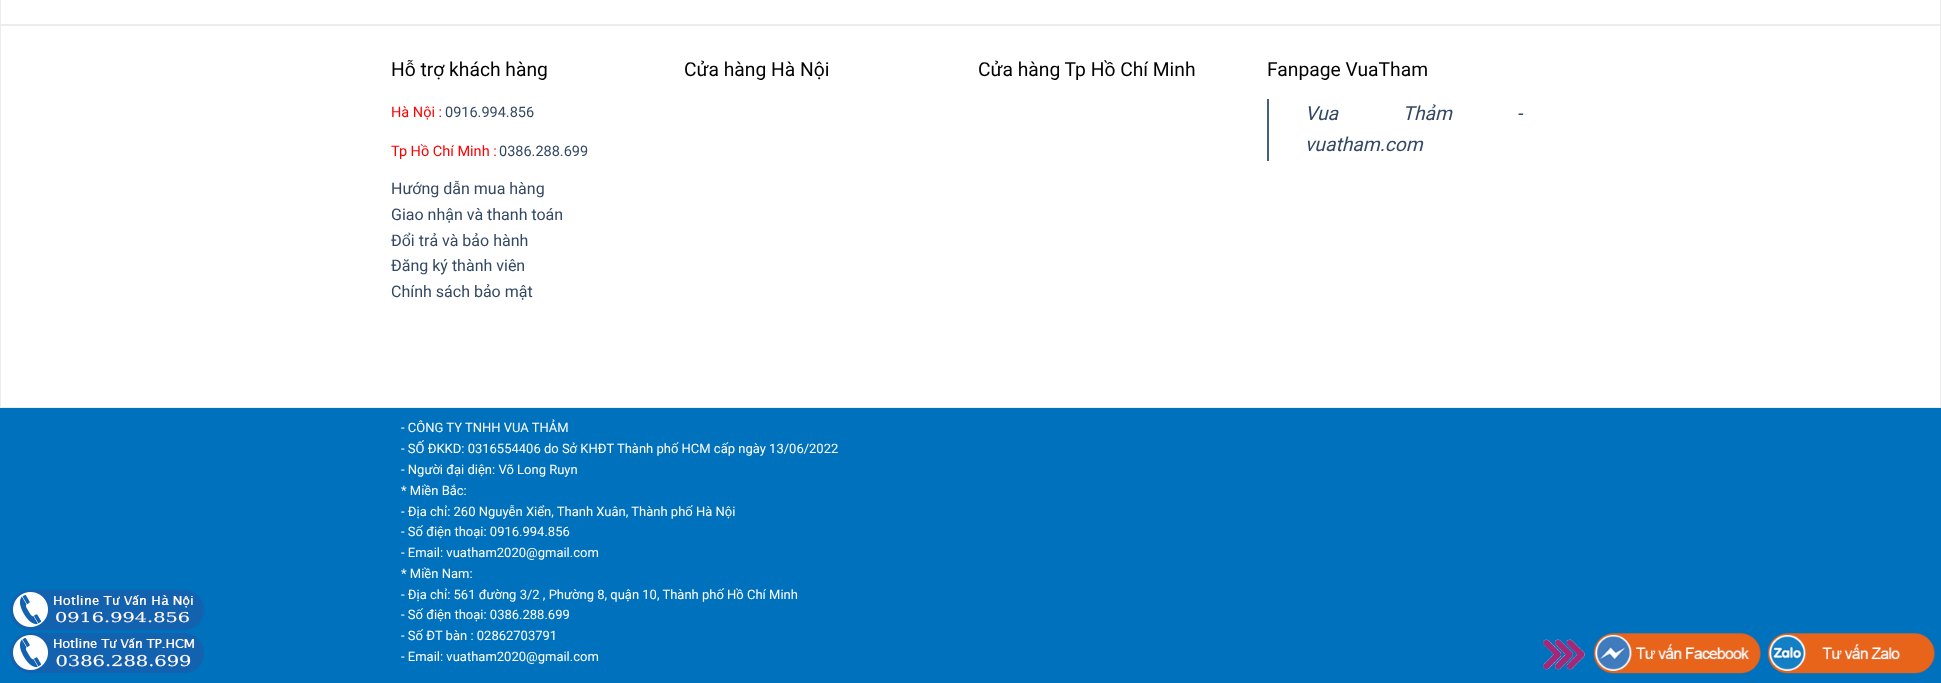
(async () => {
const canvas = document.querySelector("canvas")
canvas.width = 1941
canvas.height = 683
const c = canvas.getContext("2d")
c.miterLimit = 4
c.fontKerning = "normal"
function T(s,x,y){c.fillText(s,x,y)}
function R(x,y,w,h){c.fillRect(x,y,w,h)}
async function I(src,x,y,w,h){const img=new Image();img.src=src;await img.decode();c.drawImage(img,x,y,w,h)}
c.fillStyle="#fff"
R(0,0,1941,683)
c.fillStyle="#0071bc"
R(0,408,1941,275)
await I("1.png",10,590,194,40)
c.strokeStyle="#ececec"
c.strokeRect(.5,-.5,1940,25)
c.strokeRect(.5,25.5,1940,382)
c.font="19.25px Roboto"
c.fillStyle="#000"
T("Hỗ trợ khách hàng",391,76)
c.font="14.5px Roboto"
c.fillStyle="#f00"
T("Hà Nội :",391,117)
c.fillStyle="#334862"
T("0916.994.856",445,117)
c.fillStyle="#f00"
T("Tp Hồ Chí Minh :",391,156)
c.fillStyle="#334862"
T("0386.288.699",499,156)
c.font="16px Roboto"
T("Hướng dẫn mua hàng",391,194)
T("Giao nhận và thanh toán",391,220)
T("Đổi trả và bảo hành",391,246)
T("Đăng ký thành viên",391,271)
T("Chính sách bảo mật",391,297)
c.font="19.25px Roboto"
c.fillStyle="#000"
T("Cửa hàng Hà Nội",684,76)
T("Cửa hàng Tp Hồ Chí Minh",978,76)
T("Fanpage VuaTham",1267,76)
c.fillStyle="#446084"
R(1267,99,2,62)
c.wordSpacing="60px"
c.font="italic 19.25px Roboto"
c.fillStyle="#334862"
T("Vua Thảm -",1305,120)
c.wordSpacing="0px"
T("vuatham.com",1305,151)
c.font="13px Roboto"
c.fillStyle="#fff"
T("- CÔNG TY TNHH VUA THẢM",401,432)
T("- SỐ ĐKKD: 0316554406 do Sở KHĐT Thành phố HCM cấp ngày 13/06/2022",401,453)
T("- Người đại diện: Võ Long Ruyn",401,474)
T("* Miền Bắc:",401,495)
T("- Địa chỉ: 260 Nguyễn Xiển, Thanh Xuân, Thành phố Hà Nội",401,516)
T("- Số điện thoại: 0916.994.856",401,536)
T("- Email: vuatham2020@gmail.com",401,557)
T("* Miền Nam:",401,578)
T("- Địa chỉ: 561 đường 3/2 , Phường 8, quận 10, Thành phố Hồ Chí Minh",401,599)
T("- Số điện thoại: 0386.288.699",401,619)
T("- Số ĐT bàn : 02862703791",401,640)
T("- Email: vuatham2020@gmail.com",401,661)
await I("2.png",10,633,194,40)
await I("3.png",1543,639,42,31)
await I("4.png",1593,633,168,41)
await I("5.png",1767,633,168,41)
})()
